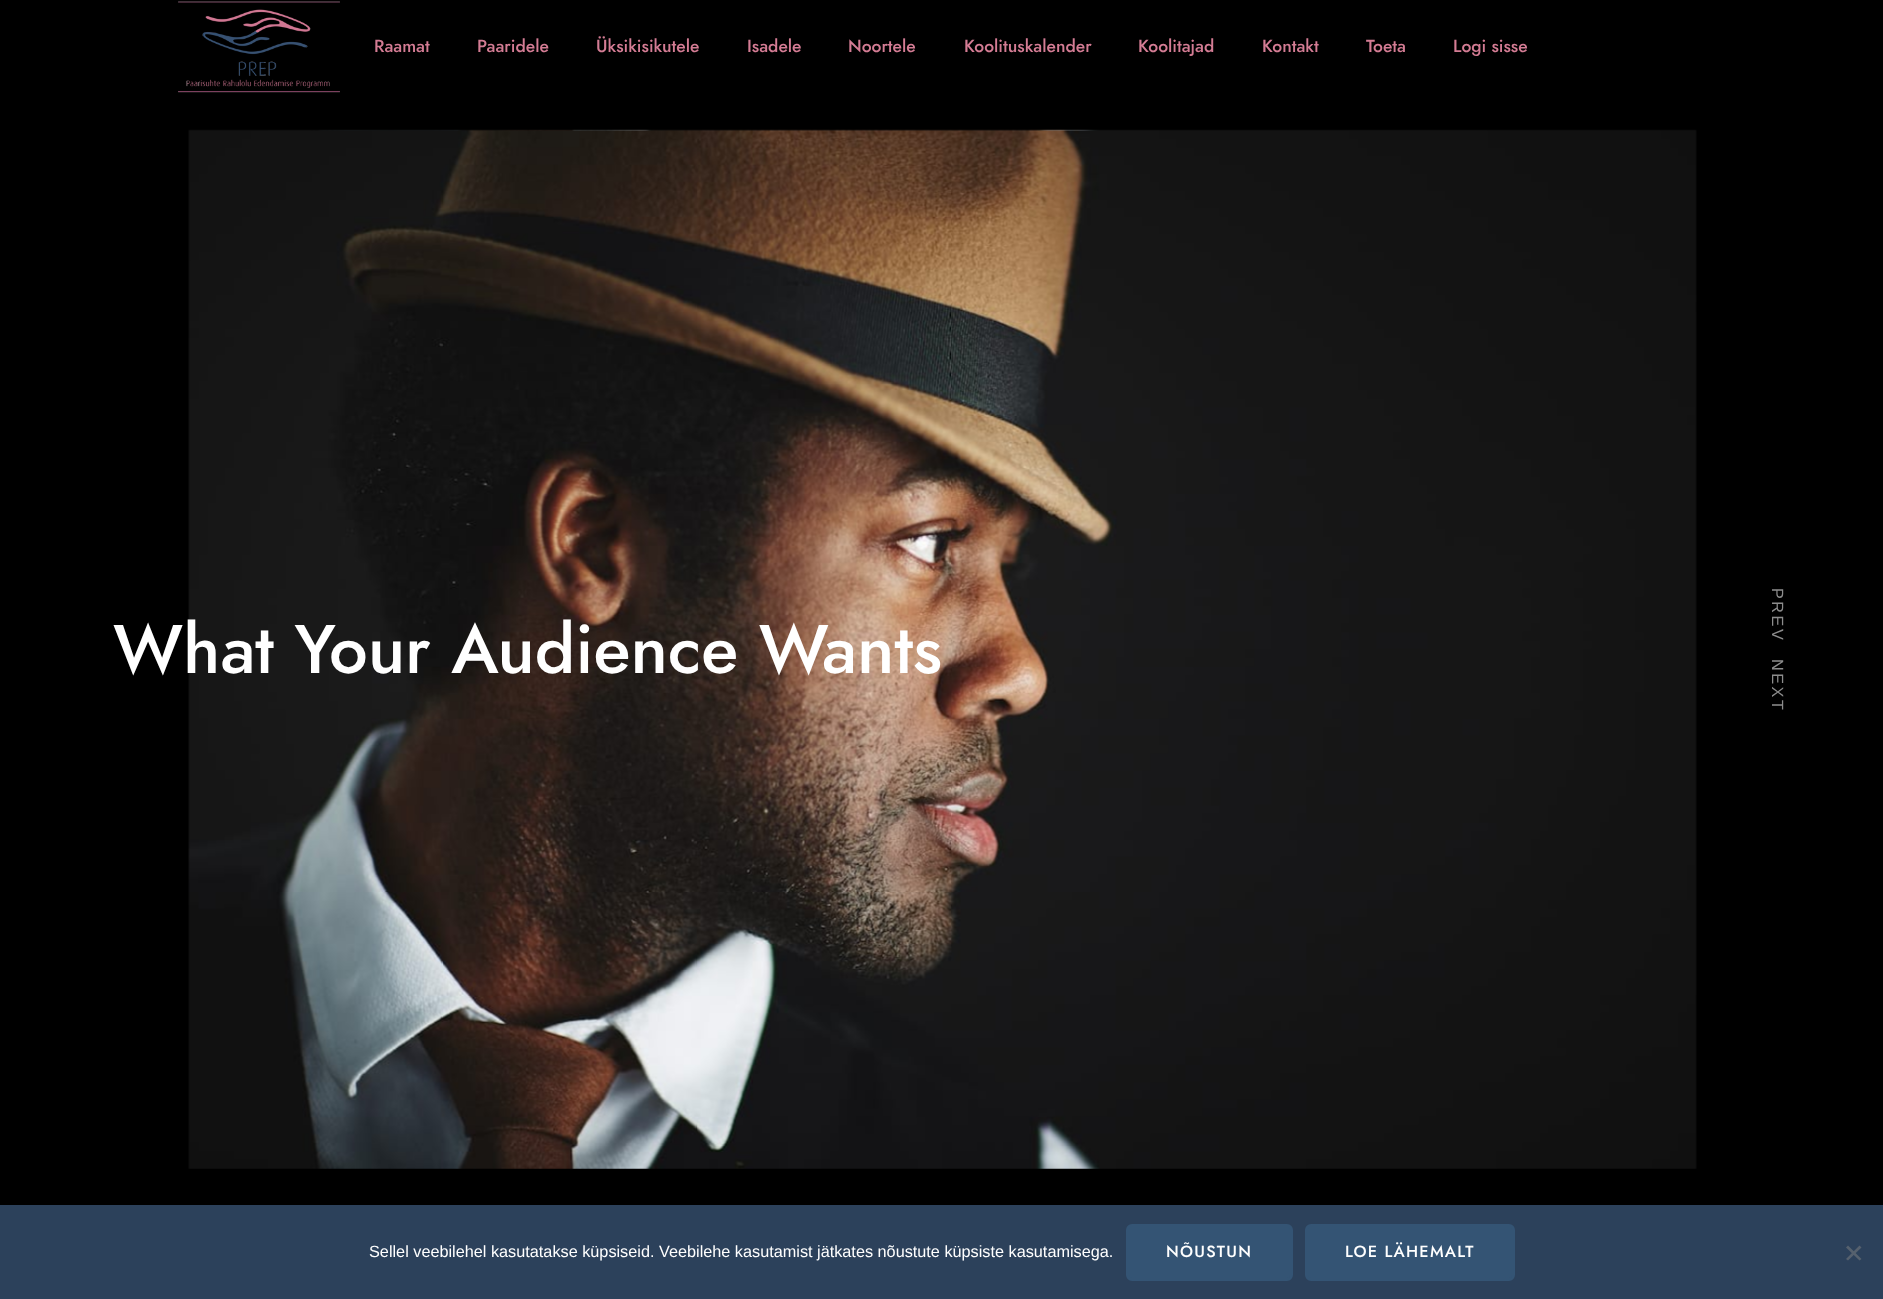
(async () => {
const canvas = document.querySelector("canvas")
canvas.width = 1883
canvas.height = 1299
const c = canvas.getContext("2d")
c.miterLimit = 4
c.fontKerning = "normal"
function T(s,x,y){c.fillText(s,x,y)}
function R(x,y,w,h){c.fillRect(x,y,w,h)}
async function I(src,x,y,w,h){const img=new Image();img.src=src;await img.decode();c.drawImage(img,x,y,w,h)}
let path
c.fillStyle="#000"
R(0,0,1883,1299)
await I("1.png",178,1,162,92)
c.font="500 17.5px Jost"
c.fillStyle="#d47c94"
T("Raamat",374,52)
T("Paaridele",477,52)
T("Üksikisikutele",596,52)
T("Isadele",747,52)
T("Noortele",848,52)
T("Koolituskalender",964,52)
T("Koolitajad",1138,52)
T("Kontakt",1262,52)
T("Toeta",1366,52)
T("Logi sisse",1453,52)
await I("2.png",188,129,1509,1040)
c.font="500 68.75px Jost"
c.fillStyle="#fff"
T("What Your Audience Wants",113,673)
c.letterSpacing="2.5px"
c.font="16.25px Liberation Sans"
c.fillStyle="#8c8c8c"
c.save()
c.translate(1772,588)
c.rotate(90 * Math.PI / 180)
c.fillText("PREV",0,0)
c.restore()
c.save()
c.translate(1772,659)
c.rotate(90 * Math.PI / 180)
c.fillText("NEXT",0,0)
c.restore()
c.fillStyle="#2c415b"
R(0,1205,1883,94)
c.letterSpacing="0px"
c.fillStyle="#fff"
T("Sellel veebilehel kasutatakse küpsiseid. Veebilehe kasutamist jätkates nõustute küpsiste kasutamisega.",369,1257)
c.fillStyle="#345474"
c.beginPath()
c.roundRect(1127.5,1225.5,164,54,4.5)
c.fill()
c.strokeStyle="#345474"
c.lineWidth=3
c.stroke()
c.letterSpacing="1.25px"
c.font="500 16.25px Jost"
c.fillStyle="#fff"
T("NÕUSTUN",1166,1257)
c.fillStyle="#345474"
c.beginPath()
c.roundRect(1306.5,1225.5,207,54,4.5)
c.fill()
c.stroke()
c.fillStyle="#fff"
T("LOE LÄHEMALT",1345,1257)
c.fillStyle="#56616e"
path = new Path2D("M1859.5 1245.5l2 2l-13.5 13l-2-1.5z")
c.fill(path)
path = new Path2D("M1846 1247.5l2-2l13.5 13.5l-2 1.5z")
c.fill(path)
})()
